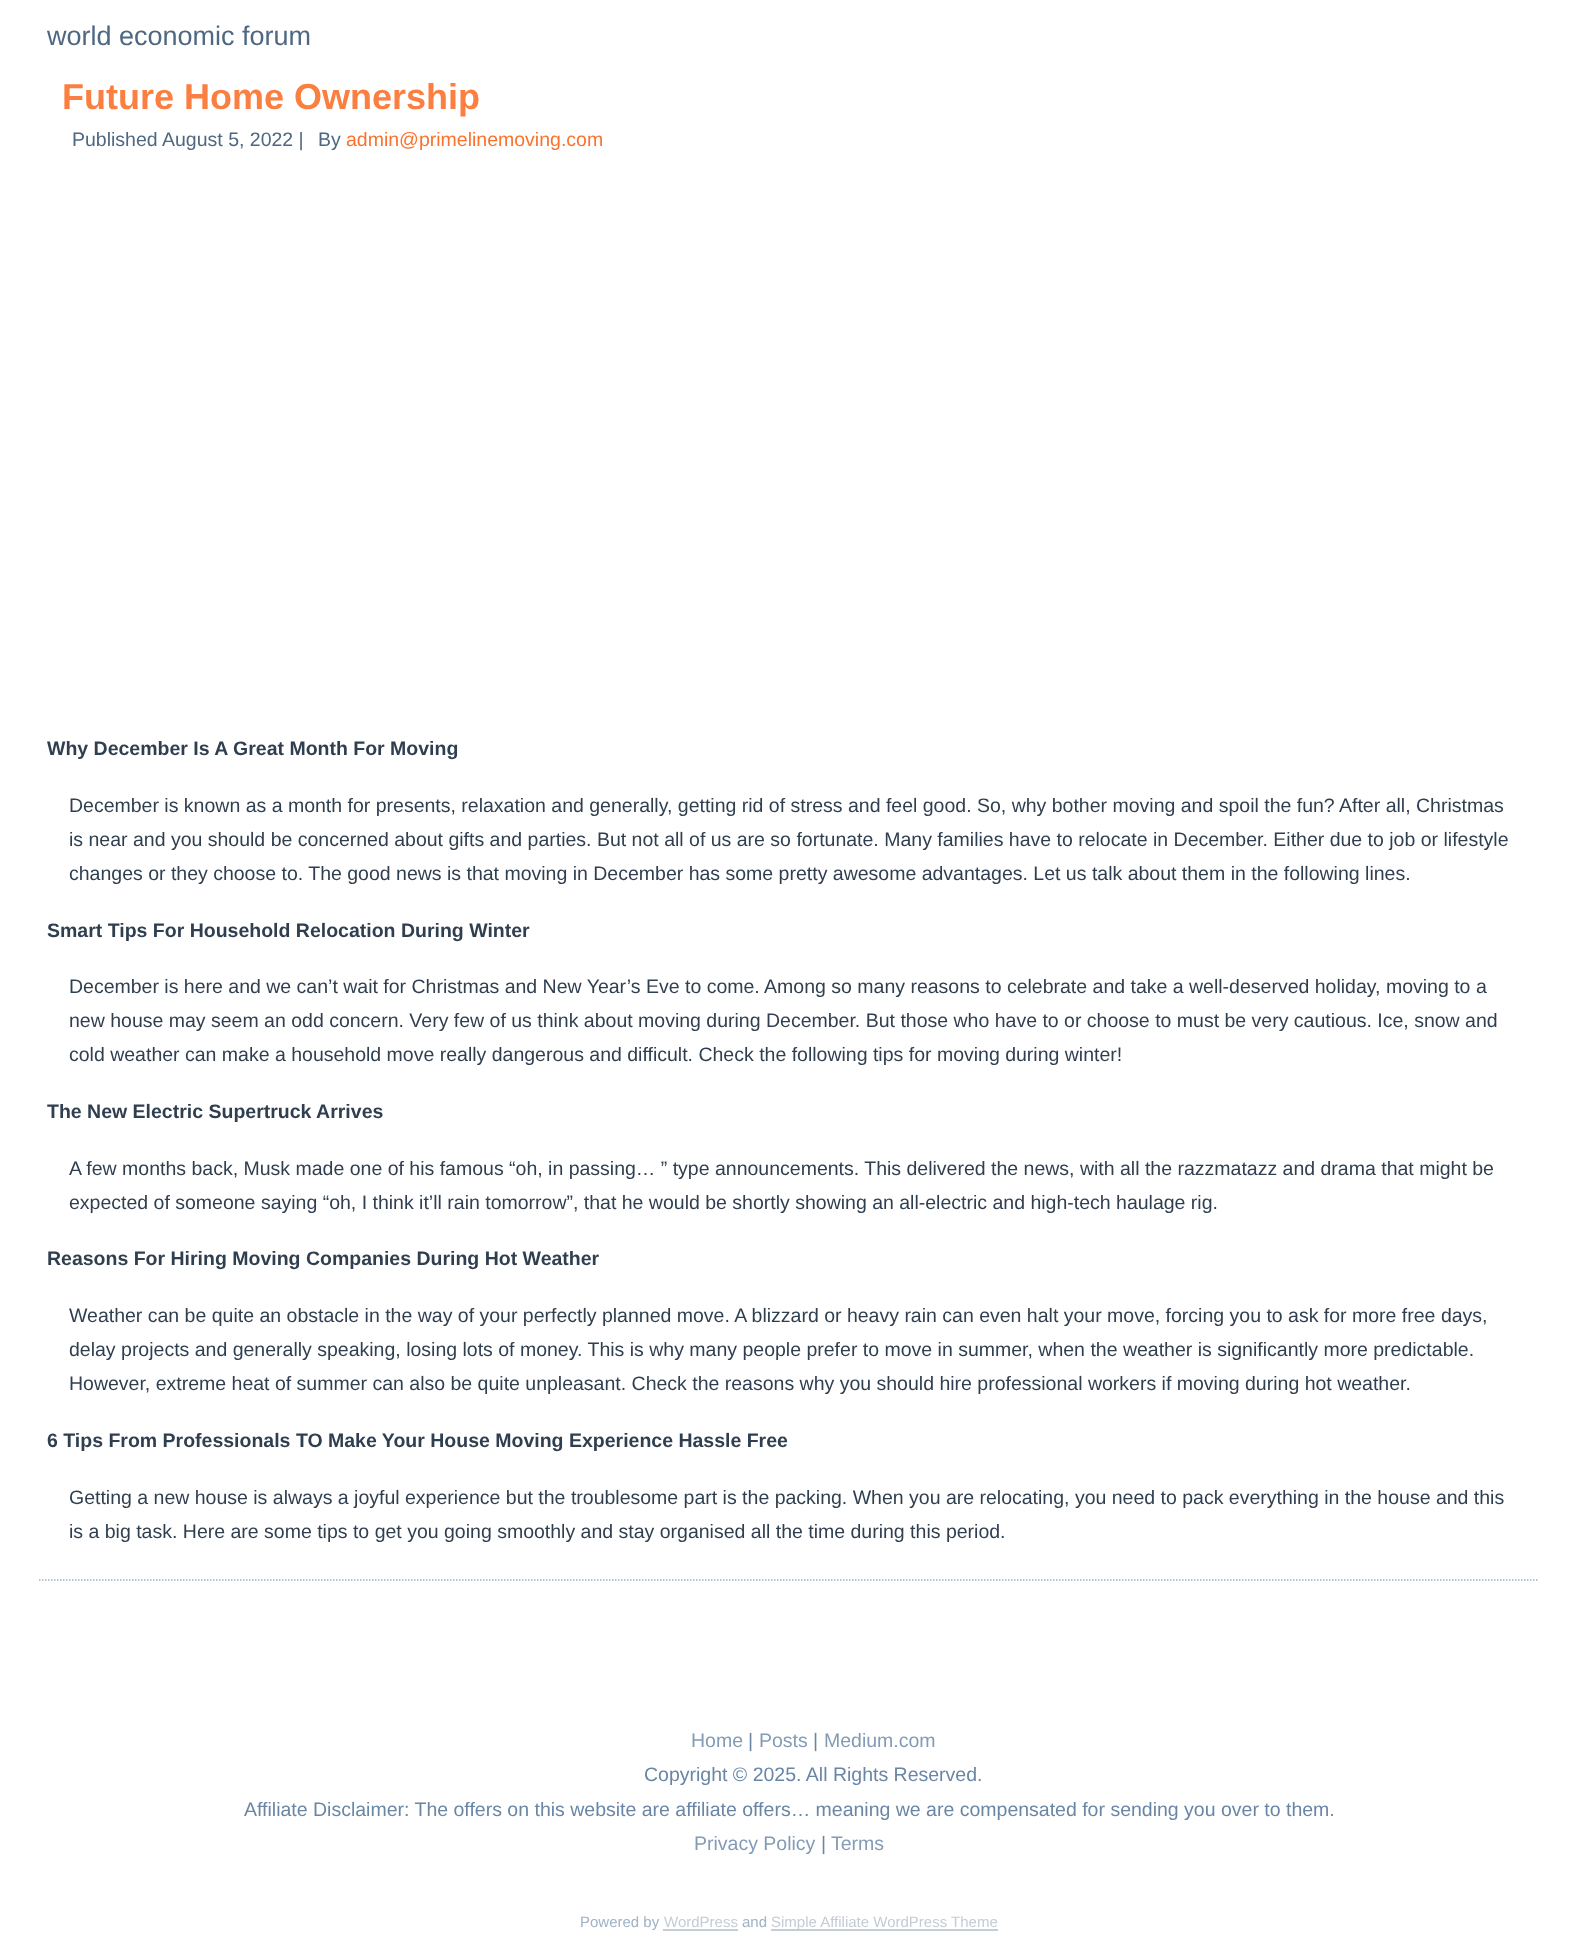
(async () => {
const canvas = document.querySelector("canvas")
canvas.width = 1577
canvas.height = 1945
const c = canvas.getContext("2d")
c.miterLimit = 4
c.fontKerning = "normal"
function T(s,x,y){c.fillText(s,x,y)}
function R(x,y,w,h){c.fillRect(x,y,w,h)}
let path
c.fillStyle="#fff"
R(0,0,1577,1945)
c.font="27px Liberation Sans"
c.fillStyle="#4e6883"
T("world economic forum",47,45)
c.font="bold 36px Liberation Sans"
c.fillStyle="#fb7f41"
T("Future Home Ownership",62,109)
c.font="19.5px Liberation Sans"
c.fillStyle="#4e6883"
T("Published",72,146)
T("August 5, 2022 |",162,146)
T("By",318,146)
c.fillStyle="#fb722d"
T("admin@primelinemoving.com",346,146)
c.font="bold 19.5px Liberation Sans"
c.fillStyle="#303f50"
T("Why December Is A Great Month For Moving",47,755)
c.font="19.5px Liberation Sans"
T("December is known as a month for presents, relaxation and generally, getting rid of stress and feel good. So, why bother moving and spoil the fun? After all, Christmas",69,812)
T("is near and you should be concerned about gifts and parties. But not all of us are so fortunate. Many families have to relocate in December. Either due to job or lifestyle",69,846)
T("changes or they choose to. The good news is that moving in December has some pretty awesome advantages. Let us talk about them in the following lines.",69,880)
c.font="bold 19.5px Liberation Sans"
T("Smart Tips For Household Relocation During Winter",47,937)
c.font="19.5px Liberation Sans"
T("December is here and we can’t wait for Christmas and New Year’s Eve to come. Among so many reasons to celebrate and take a well-deserved holiday, moving to a",69,993)
T("new house may seem an odd concern. Very few of us think about moving during December. But those who have to or choose to must be very cautious. Ice, snow and",69,1027)
T("cold weather can make a household move really dangerous and difficult. Check the following tips for moving during winter!",69,1061)
c.font="bold 19.5px Liberation Sans"
T("The New Electric Supertruck Arrives",47,1118)
c.font="19.5px Liberation Sans"
T("A few months back, Musk made one of his famous “oh, in passing… ” type announcements. This delivered the news, with all the razzmatazz and drama that might be",69,1175)
T("expected of someone saying “oh, I think it’ll rain tomorrow”, that he would be shortly showing an all-electric and high-tech haulage rig.",69,1209)
c.font="bold 19.5px Liberation Sans"
T("Reasons For Hiring Moving Companies During Hot Weather",47,1265)
c.font="19.5px Liberation Sans"
T("Weather can be quite an obstacle in the way of your perfectly planned move. A blizzard or heavy rain can even halt your move, forcing you to ask for more free days,",69,1322)
T("delay projects and generally speaking, losing lots of money. This is why many people prefer to move in summer, when the weather is significantly more predictable.",69,1356)
T("However, extreme heat of summer can also be quite unpleasant. Check the reasons why you should hire professional workers if moving during hot weather.",69,1390)
c.font="bold 19.5px Liberation Sans"
T("6 Tips From Professionals TO Make Your House Moving Experience Hassle Free",47,1447)
c.font="19.5px Liberation Sans"
T("Getting a new house is always a joyful experience but the troublesome part is the packing. When you are relocating, you need to pack everything in the house and this",69,1504)
T("is a big task. Here are some tips to get you going smoothly and stay organised all the time during this period.",69,1538)
path = new Path2D("M39 1580h1500")
c.strokeStyle="#9cafc4"
c.lineWidth=1.5
c.setLineDash([1.5,1.5])
c.stroke(path)
c.fillStyle="#839bb4"
T("Home",691,1747)
c.fillStyle="#6986a5"
T("|",748,1747)
c.fillStyle="#839bb4"
T("Posts",759,1747)
c.fillStyle="#6986a5"
T("|",813,1747)
c.fillStyle="#839bb4"
T("Medium.com",824,1747)
c.fillStyle="#6986a5"
T("Copyright © 2025. All Rights Reserved.",644,1781)
T("Affiliate Disclaimer: The offers on this website are affiliate offers… meaning we are compensated for sending you over to them.",244,1816)
c.fillStyle="#839bb4"
T("Privacy Policy",694,1850)
c.fillStyle="#6986a5"
T("|",821,1850)
c.fillStyle="#839bb4"
T("Terms",831,1850)
c.font="15px Liberation Sans"
c.fillStyle="#9fb2c6"
T("Powered by",580,1927)
c.fillStyle="#c4ccd4"
R(663,1929,75,2)
T("WordPress",664,1927)
c.fillStyle="#9fb2c6"
T("and",742,1927)
c.fillStyle="#c4ccd4"
R(771,1929,227,2)
T("Simple Affiliate WordPress Theme",771,1927)
})()
